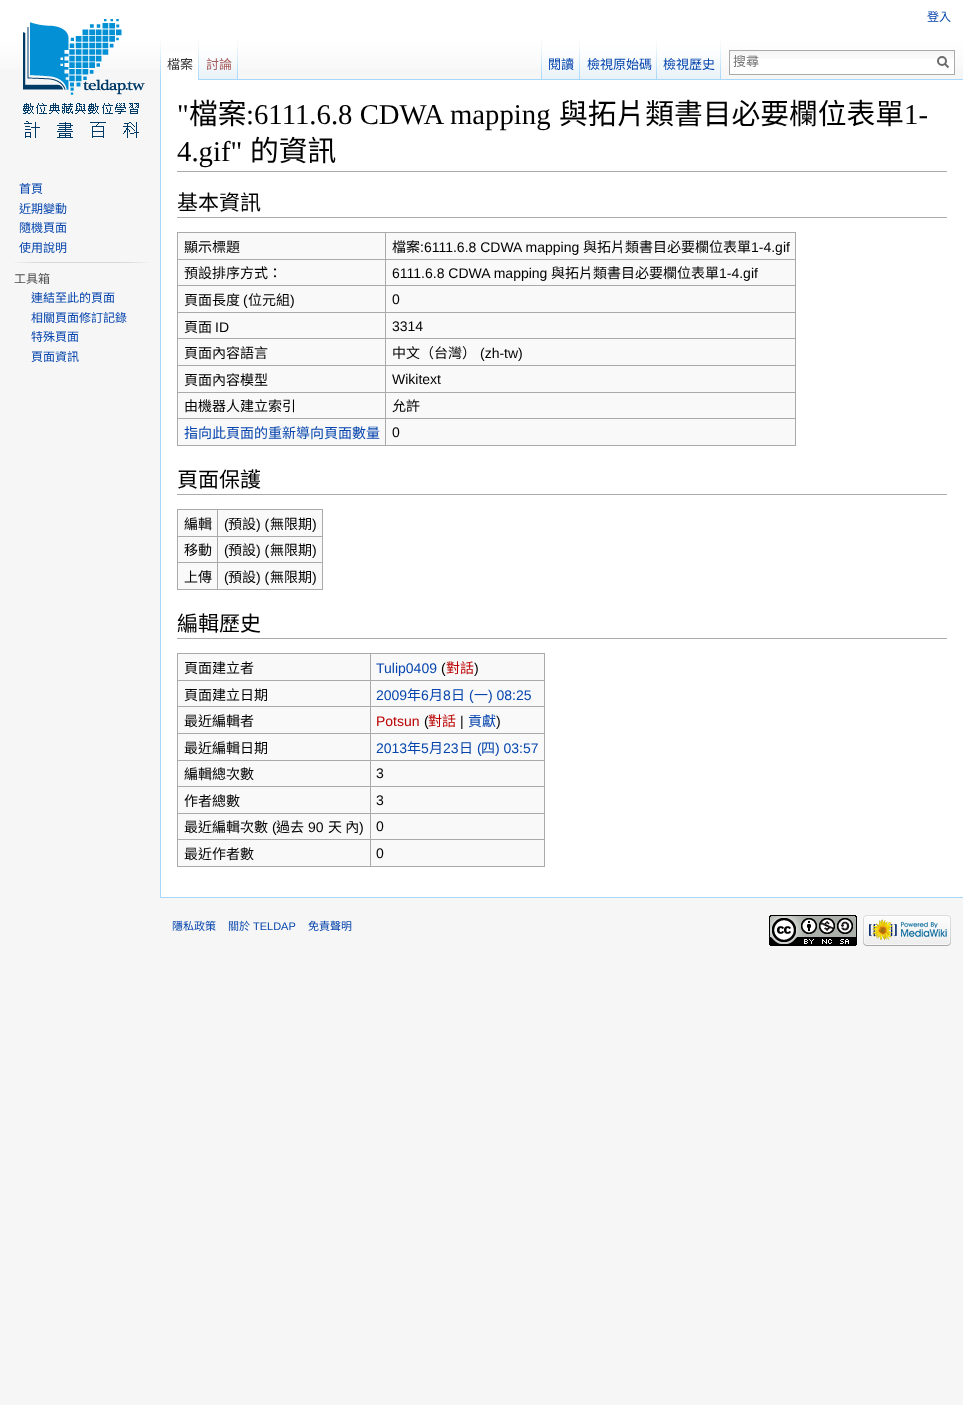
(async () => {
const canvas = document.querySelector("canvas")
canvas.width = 963
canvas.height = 1405
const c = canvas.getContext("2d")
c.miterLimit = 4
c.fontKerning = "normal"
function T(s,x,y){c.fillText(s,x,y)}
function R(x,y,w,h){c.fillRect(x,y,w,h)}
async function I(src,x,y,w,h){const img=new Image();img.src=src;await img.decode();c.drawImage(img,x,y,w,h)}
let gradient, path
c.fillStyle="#f6f6f6"
R(0,0,963,1405)
gradient = c.createLinearGradient(482,0,482,80)
gradient.addColorStop(.5,"#fff")
gradient.addColorStop(1,"#f6f6f6")
c.fillStyle = gradient
R(0,0,963,69)
c.font="12px Noto Sans CJK TC"
c.fillStyle="#0645ad"
T("登入",927,21)
await I("1.png",160,40,1,39)
c.fillStyle="#fff"
R(161,51,37,29)
await I("2.png",198,40,1,40)
c.font="13px Noto Sans CJK TC"
c.fillStyle="#333"
T("檔案",167,69)
await I("3.png",199,40,39,40)
await I("4.png",237,40,1,39)
c.fillStyle="#a55858"
T("討論",206,69)
await I("1.png",541,40,1,39)
c.fillStyle="#a7d7f9"
R(238,79,725,1)
await I("5.png",542,40,38,40)
await I("4.png",579,40,1,39)
c.fillStyle="#0645ad"
T("閱讀",548,69)
await I("6.png",580,40,77,40)
await I("4.png",656,40,1,39)
T("檢視原始碼",587,69)
await I("7.png",657,40,64,40)
await I("4.png",720,40,1,39)
T("檢視歷史",663,69)
c.fillStyle="#fff"
R(730,59,224,15)
await I("8.png",730,51,224,8)
c.strokeStyle="#aaa"
c.strokeRect(729.5,50.5,225,24)
c.fillStyle="#757575"
T("搜尋",733,66)
path = new Path2D("M948.5 67.5l-4-4")
c.strokeStyle="#6c6c6c"
c.lineWidth=2
c.stroke(path)
c.beginPath()
c.arc(942,61,4,0,7)
c.stroke()
await I("9.png",23,19,122,119)
c.font="12px Noto Sans CJK TC"
c.fillStyle="#0645ad"
T("首頁",19,193)
T("近期變動",19,213)
T("隨機頁面",19,232)
T("使用說明",19,252)
await I("10.png",14,262,135,1)
c.fillStyle="#4d4d4d"
T("工具箱",14,283)
c.fillStyle="#0645ad"
T("連結至此的頁面",31,302)
T("相關頁面修訂記錄",31,322)
T("特殊頁面",31,341)
T("頁面資訊",31,361)
c.fillStyle="#fff"
R(161,80,802,817)
c.fillStyle="#a7d7f9"
R(160,897,803,1)
R(160,79,1,819)
c.fillStyle="#aaa"
R(177,171,770,1)
c.font="28.75px Liberation Serif"
c.fillStyle="#000"
T("\"",177,124)
c.font="28.75px Noto Sans CJK TC"
T("檔案",189,124)
c.font="28.75px Liberation Serif"
T(":6111.6.8 CDWA mapping",246,124)
c.font="28.75px Noto Sans CJK TC"
T("與拓片類書目必要欄位表單",559,124)
c.font="28.75px Liberation Serif"
T("1-",904,124)
T("4.gif\"",177,161)
c.font="28.75px Noto Sans CJK TC"
T("的資訊",250,161)
c.fillStyle="#aaa"
R(177,217,770,1)
c.font="21px Noto Sans CJK TC"
c.fillStyle="#000"
T("基本資訊",177,210)
c.fillStyle="#f9f9f9"
R(178,233,617,212)
c.fillStyle="#aaa"
R(177,232,619,1)
R(795,232,1,214)
R(177,445,619,1)
R(177,232,1,214)
c.font="14px Noto Sans CJK TC"
c.fillStyle="#000"
T("顯示標題",184,252)
c.fillStyle="#aaa"
R(385,259,411,1)
R(385,285,411,1)
R(385,312,411,1)
R(385,338,411,1)
R(385,365,411,1)
R(385,392,411,1)
R(385,418,411,1)
R(385,418,1,28)
R(177,418,209,1)
R(385,392,1,27)
R(177,392,209,1)
R(385,365,1,28)
R(177,365,209,1)
R(385,338,1,28)
R(177,338,209,1)
R(385,312,1,27)
R(177,312,209,1)
R(385,285,1,28)
R(177,285,209,1)
R(385,259,1,27)
R(177,259,209,1)
R(385,232,1,28)
c.fillStyle="#000"
T("檔案",392,252)
c.font="14px Liberation Sans"
T(":6111.6.8 CDWA mapping",420,252)
c.font="14px Noto Sans CJK TC"
T("與拓片類書目必要欄位表單",583,252)
c.font="14px Liberation Sans"
T("1-4.gif",751,252)
c.font="14px Noto Sans CJK TC"
T("預設排序方式：",184,278)
c.font="14px Liberation Sans"
T("6111.6.8 CDWA mapping",392,278)
c.font="14px Noto Sans CJK TC"
T("與拓片類書目必要欄位表單",551,278)
c.font="14px Liberation Sans"
T("1-4.gif",719,278)
c.font="14px Noto Sans CJK TC"
T("頁面長度",184,305)
c.font="14px Liberation Sans"
T("(",243,305)
c.font="14px Noto Sans CJK TC"
T("位元組",248,305)
c.font="14px Liberation Sans"
T(")",290,305)
T("0",392,304)
c.font="14px Noto Sans CJK TC"
T("頁面",184,332)
c.font="14px Liberation Sans"
T("ID",215,332)
T("3314",392,331)
c.font="14px Noto Sans CJK TC"
T("頁面內容語言",184,358)
T("中文（台灣）",392,358)
c.font="14px Liberation Sans"
T("(zh-tw)",480,358)
c.font="14px Noto Sans CJK TC"
T("頁面內容模型",184,385)
c.font="14px Liberation Sans"
T("Wikitext",392,384)
c.font="14px Noto Sans CJK TC"
T("由機器人建立索引",184,411)
T("允許",392,411)
c.fillStyle="#0645ad"
T("指向此頁面的重新導向頁面數量",184,438)
c.font="14px Liberation Sans"
c.fillStyle="#000"
T("0",392,437)
c.fillStyle="#aaa"
R(177,494,770,1)
c.font="21px Noto Sans CJK TC"
c.fillStyle="#000"
T("頁面保護",177,487)
c.fillStyle="#f9f9f9"
R(178,510,144,79)
c.fillStyle="#aaa"
R(177,509,146,1)
R(322,509,1,81)
R(177,589,146,1)
R(177,509,1,81)
c.font="14px Noto Sans CJK TC"
c.fillStyle="#000"
T("編輯",184,529)
c.fillStyle="#aaa"
R(217,536,106,1)
R(217,562,106,1)
R(217,562,1,28)
R(177,562,41,1)
R(217,536,1,27)
R(177,536,41,1)
R(217,509,1,28)
c.font="14px Liberation Sans"
c.fillStyle="#000"
T("(",224,529)
c.font="14px Noto Sans CJK TC"
T("預設",228,529)
c.font="14px Liberation Sans"
T(") (",256,529)
c.font="14px Noto Sans CJK TC"
T("無限期",270,529)
c.font="14px Liberation Sans"
T(")",312,529)
c.font="14px Noto Sans CJK TC"
T("移動",184,555)
c.font="14px Liberation Sans"
T("(",224,555)
c.font="14px Noto Sans CJK TC"
T("預設",228,555)
c.font="14px Liberation Sans"
T(") (",256,555)
c.font="14px Noto Sans CJK TC"
T("無限期",270,555)
c.font="14px Liberation Sans"
T(")",312,555)
c.font="14px Noto Sans CJK TC"
T("上傳",184,582)
c.font="14px Liberation Sans"
T("(",224,582)
c.font="14px Noto Sans CJK TC"
T("預設",228,582)
c.font="14px Liberation Sans"
T(") (",256,582)
c.font="14px Noto Sans CJK TC"
T("無限期",270,582)
c.font="14px Liberation Sans"
T(")",312,582)
c.fillStyle="#aaa"
R(177,638,770,1)
c.font="21px Noto Sans CJK TC"
c.fillStyle="#000"
T("編輯歷史",177,631)
c.fillStyle="#f9f9f9"
R(178,654,366,212)
c.fillStyle="#aaa"
R(177,653,368,1)
R(544,653,1,214)
R(177,866,368,1)
R(177,653,1,214)
c.font="14px Noto Sans CJK TC"
c.fillStyle="#000"
T("頁面建立者",184,673)
c.fillStyle="#aaa"
R(370,680,175,1)
R(370,706,175,1)
R(370,733,175,1)
R(370,760,175,1)
R(370,786,175,1)
R(370,813,175,1)
R(370,839,175,1)
R(370,839,1,28)
R(177,839,194,1)
R(370,813,1,27)
R(177,813,194,1)
R(370,786,1,28)
R(177,786,194,1)
R(370,760,1,27)
R(177,760,194,1)
R(370,733,1,28)
R(177,733,194,1)
R(370,706,1,28)
R(177,706,194,1)
R(370,680,1,27)
R(177,680,194,1)
R(370,653,1,28)
c.font="14px Liberation Sans"
c.fillStyle="#0645ad"
T("Tulip0409",376,673)
c.fillStyle="#000"
T("(",441,673)
c.font="14px Noto Sans CJK TC"
c.fillStyle="#ba0000"
T("對話",446,673)
c.font="14px Liberation Sans"
c.fillStyle="#000"
T(")",474,673)
c.font="14px Noto Sans CJK TC"
T("頁面建立日期",184,700)
c.font="14px Liberation Sans"
c.fillStyle="#0645ad"
T("2009",376,700)
c.font="14px Noto Sans CJK TC"
T("年",407,700)
c.font="14px Liberation Sans"
T("6",421,700)
c.font="14px Noto Sans CJK TC"
T("月",429,700)
c.font="14px Liberation Sans"
T("8",443,700)
c.font="14px Noto Sans CJK TC"
T("日",451,700)
c.font="14px Liberation Sans"
T("(",469,700)
c.font="14px Noto Sans CJK TC"
T("一",474,700)
c.font="14px Liberation Sans"
T(") 08:25",488,700)
c.font="14px Noto Sans CJK TC"
c.fillStyle="#000"
T("最近編輯者",184,726)
c.font="14px Liberation Sans"
c.fillStyle="#ba0000"
T("Potsun",376,726)
c.fillStyle="#000"
T("(",424,726)
c.font="14px Noto Sans CJK TC"
c.fillStyle="#ba0000"
T("對話",428,726)
c.font="14px Liberation Sans"
c.fillStyle="#000"
T("|",460,726)
c.font="14px Noto Sans CJK TC"
c.fillStyle="#0645ad"
T("貢獻",468,726)
c.font="14px Liberation Sans"
c.fillStyle="#000"
T(")",496,726)
c.font="14px Noto Sans CJK TC"
T("最近編輯日期",184,753)
c.font="14px Liberation Sans"
c.fillStyle="#0645ad"
T("2013",376,753)
c.font="14px Noto Sans CJK TC"
T("年",407,753)
c.font="14px Liberation Sans"
T("5",421,753)
c.font="14px Noto Sans CJK TC"
T("月",429,753)
c.font="14px Liberation Sans"
T("23",443,753)
c.font="14px Noto Sans CJK TC"
T("日",459,753)
c.font="14px Liberation Sans"
T("(",477,753)
c.font="14px Noto Sans CJK TC"
T("四",481,753)
c.font="14px Liberation Sans"
T(") 03:57",495,753)
c.font="14px Noto Sans CJK TC"
c.fillStyle="#000"
T("編輯總次數",184,779)
c.font="14px Liberation Sans"
T("3",376,778)
c.font="14px Noto Sans CJK TC"
T("作者總數",184,806)
c.font="14px Liberation Sans"
T("3",376,805)
c.font="14px Noto Sans CJK TC"
T("最近編輯次數",184,832)
c.font="14px Liberation Sans"
T("(",272,832)
c.font="14px Noto Sans CJK TC"
T("過去",276,832)
c.font="14px Liberation Sans"
T("90",308,832)
c.font="14px Noto Sans CJK TC"
T("天 內",328,832)
c.font="14px Liberation Sans"
T(")",359,832)
T("0",376,831)
c.font="14px Noto Sans CJK TC"
T("最近作者數",184,859)
c.font="14px Liberation Sans"
T("0",376,858)
c.font="11px Noto Sans CJK TC"
c.fillStyle="#0645ad"
T("隱私政策",172,930)
T("關於",228,930)
c.font="11px Liberation Sans"
T("TELDAP",253,930)
c.font="11px Noto Sans CJK TC"
T("免責聲明",308,930)
await I("11.png",769,915,88,31)
await I("12.png",863,915,88,31)
})()
